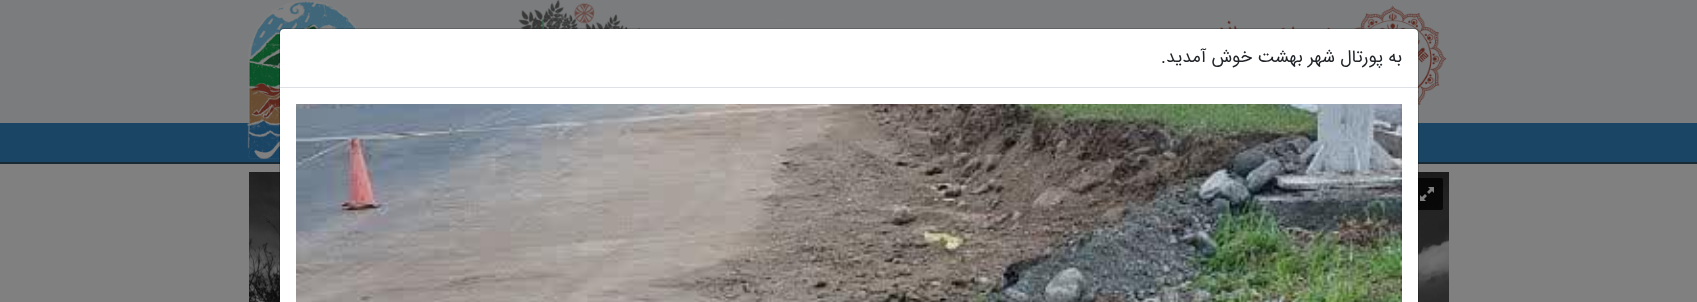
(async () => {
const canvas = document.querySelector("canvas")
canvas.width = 1697
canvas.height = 302
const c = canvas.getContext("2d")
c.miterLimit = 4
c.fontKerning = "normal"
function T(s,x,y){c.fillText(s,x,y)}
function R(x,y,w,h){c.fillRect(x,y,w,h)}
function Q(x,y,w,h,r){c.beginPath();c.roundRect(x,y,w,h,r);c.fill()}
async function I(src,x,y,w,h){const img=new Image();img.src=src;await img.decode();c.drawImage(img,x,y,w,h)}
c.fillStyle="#808080"
R(0,0,1697,302)
c.fillStyle="#7b7c7d"
R(0,0,1697,123)
await I("1.png",1220,5,227,100)
await I("2.png",518,0,283,29)
c.fillStyle="#1a4565"
R(0,123,1697,39)
await I("3.png",247,1,112,159)
c.fillStyle="#192a35"
R(0,162,1697,2)
await I("5.png",249,172,1200,130)
c.fillStyle="#000000bf"
Q(1411,178,32,32,2)
c.fillStyle="#fff"
c.beginPath()
c.roundRect(280,29,1138,273,[4,4,0,0])
c.fill()
c.beginPath()
c.roundRect(279.5,28.5,1139,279,4.5)
c.strokeStyle="#00000033"
c.stroke()
c.fillStyle="#dee2e6"
R(280,87,1138,1)
c.direction="rtl"
c.font="17.6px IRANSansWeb"
c.fillStyle="#212529"
T("به پورتال شهر بهشت خوش آمدید.",1402,62)
await I("4.png",296,104,1106,198)
await I("6.png",1420,187,14,14)
})()
